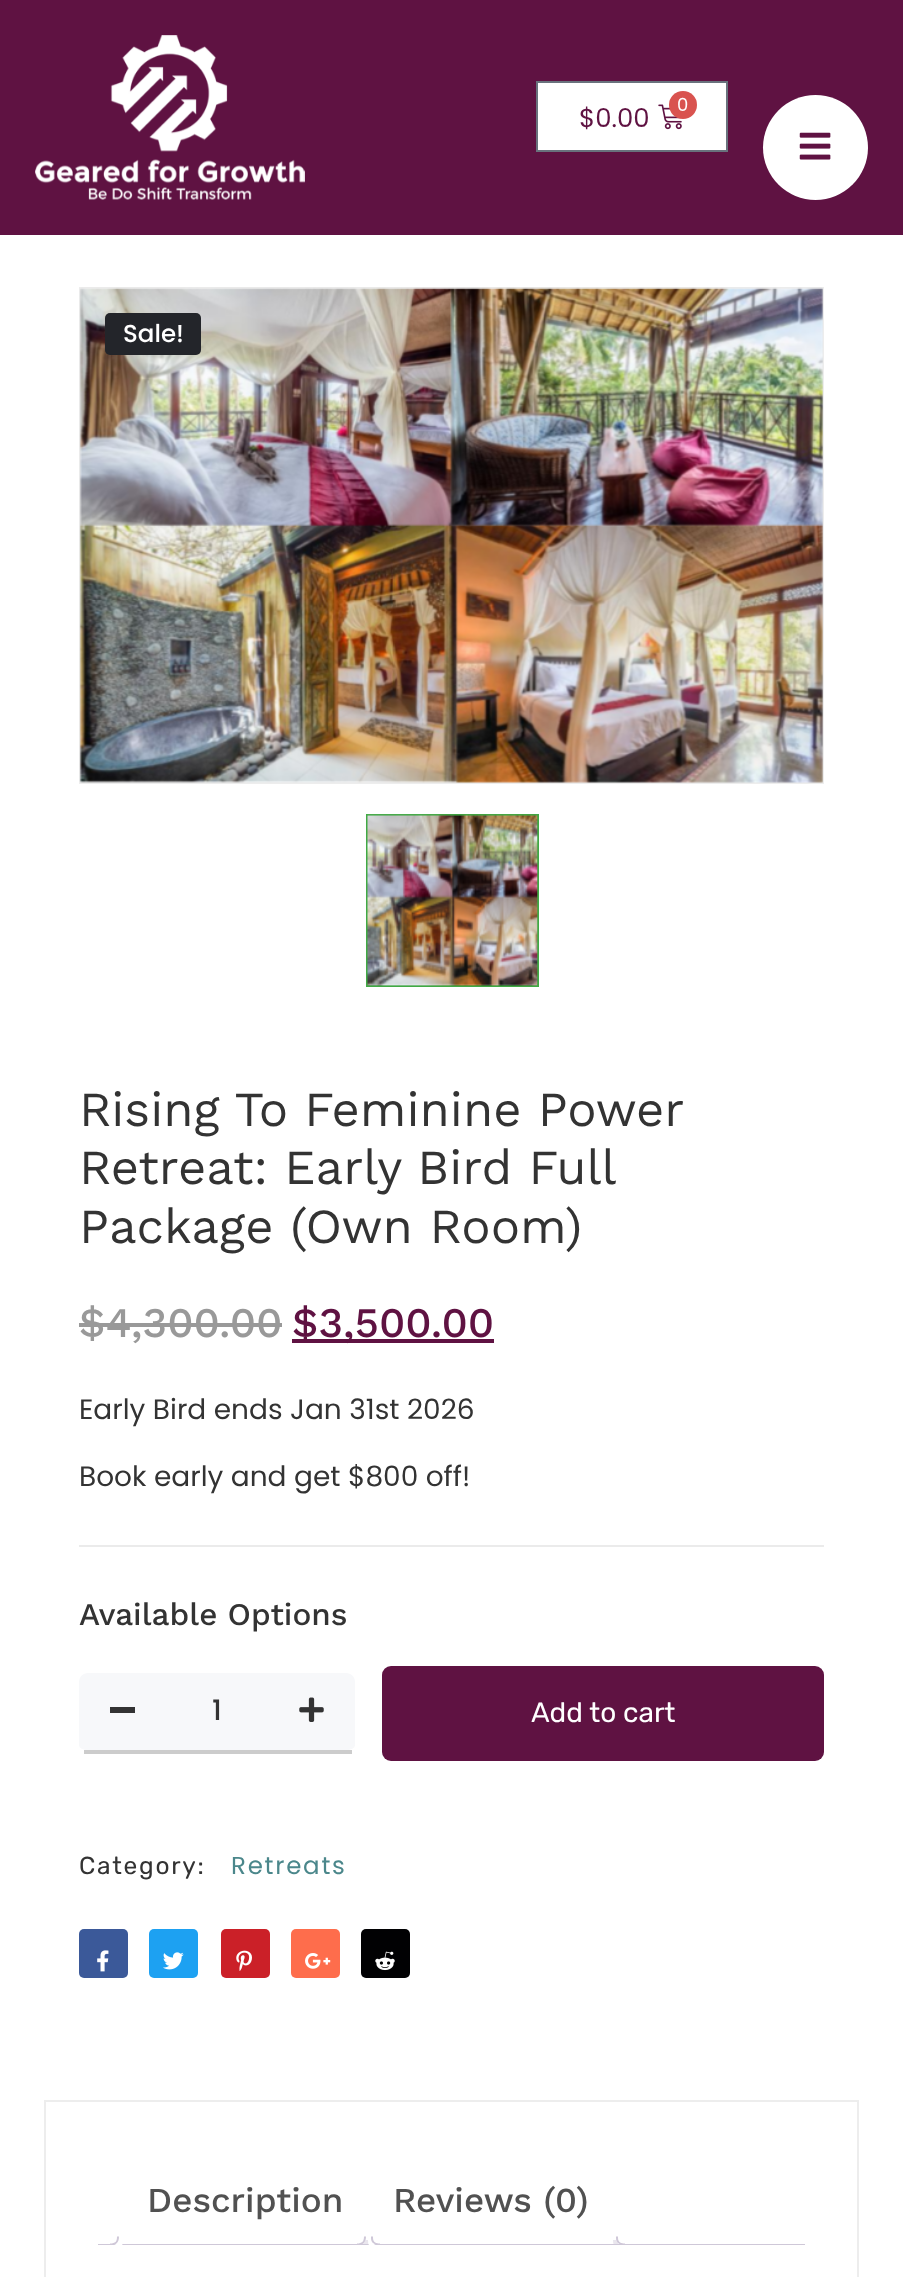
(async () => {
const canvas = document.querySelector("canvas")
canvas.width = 903
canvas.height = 2277
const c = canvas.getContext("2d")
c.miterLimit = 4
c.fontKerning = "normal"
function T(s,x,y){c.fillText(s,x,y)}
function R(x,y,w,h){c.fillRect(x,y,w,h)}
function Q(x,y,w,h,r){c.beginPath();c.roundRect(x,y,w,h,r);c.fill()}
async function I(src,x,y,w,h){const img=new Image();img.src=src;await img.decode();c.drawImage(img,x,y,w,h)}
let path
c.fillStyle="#fff"
R(0,0,903,2277)
c.fillStyle="#5f1242"
R(0,0,903,235)
await I("1.png",35,35,270,165)
c.fillStyle="#fff"
c.beginPath()
c.rect(537,82,190,69)
c.fill()
c.strokeStyle="#69727d"
c.lineWidth=2
c.stroke()
await I("2.png",658,104,24,26)
c.fillStyle="#d9534f"
c.beginPath()
c.arc(683,105,14,0,7)
c.fill()
c.font="18px Poppins"
c.fillStyle="#fff"
T("0",677,111)
c.font="26px Poppins"
c.fillStyle="#5f1242"
T("$0.00",579,127)
c.fillStyle="#fff"
c.beginPath()
c.arc(815.5,147.5,52.5,0,7)
c.fill()
await I("3.png",799,132,32,28)
c.strokeStyle="#ededed"
c.strokeRect(80,288,743,495)
await I("4.png",79,287,744,496)
c.fillStyle="#23252a"
Q(105,313,96,42,5)
c.font="500 24.5px Poppins"
c.fillStyle="#fff"
T("Sale!",123,342)
c.strokeStyle="#40a944"
c.strokeRect(367,815,171,171)
await I("5.png",367,814,171,172)
c.wordSpacing="-0.5px"
c.font="49px Work Sans"
c.fillStyle="#333"
T("Rising To Feminine Power",79,1126)
T("Retreat: Early Bird Full",79,1184)
c.wordSpacing="0px"
T("Package (Own Room)",79,1243)
c.font="500 42px Work Sans"
c.fillStyle="#999"
T("$4,300.00",79,1337)
R(79,1323,203,4)
c.fillStyle="#5f1242"
R(292,1339,202,4)
T("$3,500.00",292,1337)
c.font="28px Poppins"
c.fillStyle="#333"
T("Early Bird ends Jan 31st 2026",79,1419)
T("Book early and get $800 off!",79,1486)
c.fillStyle="#ebebeb"
R(79,1545,745,2)
c.font="500 31.5px Work Sans"
c.fillStyle="#333"
T("Available Options",79,1625)
c.fillStyle="#f7f8fa"
path = new Path2D("M88 1673h258c5 0 9 4 9 9v63c0 3-4 5-9 5h-258c-5 0-9-2-9-5v-63c0-5 4-9 9-9z")
c.fill(path)
c.fillStyle="#ccc"
R(84,1750,268,4)
c.fillStyle="#333"
R(110,1707,25,6)
c.font="500 28px Poppins"
T("1",212,1720)
await I("6.png",299,1697,25,25)
c.fillStyle="#5f1242"
Q(382,1666,442,95,9)
c.font="28px Rubik"
c.fillStyle="#fff"
T("Add to cart",531,1722)
c.letterSpacing="1.75px"
c.font="24.5px Rubik"
c.fillStyle="#333"
T("Category:",79,1874)
c.font="24.5px Poppins"
c.fillStyle="#4b878b"
T("Retreats",231,1874)
c.fillStyle="#3b5999"
Q(79,1929,49,49,5)
await I("7.png",97,1950,12,22)
c.fillStyle="#1da1f2"
Q(149,1929,49,49,5)
await I("8.png",163,1952,21,18)
c.fillStyle="#cb2028"
Q(221,1929,49,49,5)
await I("9.png",236,1950,16,21)
c.fillStyle="#fe6d4c"
Q(291,1929,49,49,5)
await I("10.png",305,1953,26,16)
c.fillStyle="#010103"
Q(361,1929,49,49,5)
await I("11.png",375,1951,20,20)
c.strokeStyle="#ededed"
c.strokeRect(45,2101,813,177)
c.letterSpacing="0px"
c.font="500 35px Work Sans"
c.fillStyle="#515151"
T("Description",147,2212)
c.save()
c.beginPath()
c.rect(98,2154,707,91)
c.clip()
c.fillStyle="#e9e6ed"
path = new Path2D("M361 2245v4c6 0 8-3.5 8-9h-3.5c-.5 2.5-2.5 4-4.5 5z")
c.fill(path)
c.restore()
c.fillStyle="#cfc8d8"
path = new Path2D("M357 2236.5h9c0 6-3 8.5-9 8.5zm0 0h7c0 5-2 7-7 7z")
c.fill(path,"evenodd")
c.save()
c.beginPath()
c.rect(98,2154,707,91)
c.clip()
c.fillStyle="#e9e6ed"
path = new Path2D("M613 2240c0 5.5 2 9 8 9v-4c-2.5-.5-4-2.5-5-5z")
c.fill(path)
c.restore()
path = new Path2D("M616 2236.5h9v8.5c-4.5 0-9-1.5-9-7zm2 0h7v7c-3.5 0-7-1-7-5.5z")
c.fill(path,"evenodd")
R(98,2244,707,1)
c.save()
c.beginPath()
c.rect(98,2154,707,91)
c.clip()
c.fillStyle="#fff"
path = new Path2D("M114 2245v4c6.5 0 9-2.5 9-9h-4c-1 2.5-2.5 4.5-5 5z")
c.fill(path)
c.restore()
path = new Path2D("M110 2236.5h9c0 6-2.5 8.5-9 8.5zm0 0h7c0 5-1.5 7-7 7z")
c.fill(path,"evenodd")
c.save()
c.beginPath()
c.rect(98,2154,707,91)
c.clip()
c.fillStyle="#fff"
path = new Path2D("M368 2240c0 5.5 2 9 8 9v-4c-2.5-.5-4-2.5-5-5z")
c.fill(path)
c.restore()
path = new Path2D("M371 2236.5h9v8.5c-4.5 0-9-1.5-9-7zm2 0h7v7c-3.5 0-7-1-7-5.5z")
c.fill(path,"evenodd")
c.fillStyle="#515151"
T("Reviews (0)",393,2212)
})()
